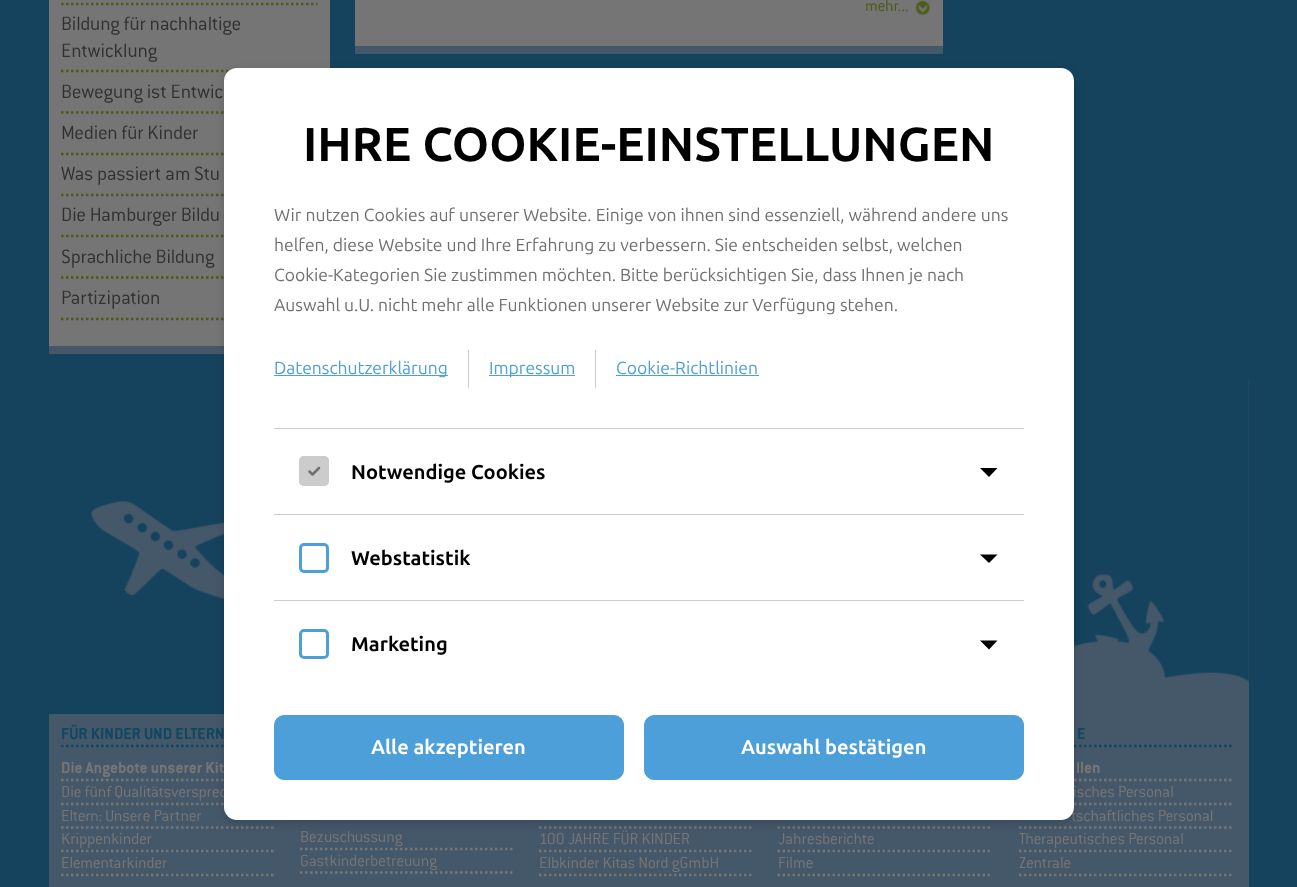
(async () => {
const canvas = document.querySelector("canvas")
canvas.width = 1297
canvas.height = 887
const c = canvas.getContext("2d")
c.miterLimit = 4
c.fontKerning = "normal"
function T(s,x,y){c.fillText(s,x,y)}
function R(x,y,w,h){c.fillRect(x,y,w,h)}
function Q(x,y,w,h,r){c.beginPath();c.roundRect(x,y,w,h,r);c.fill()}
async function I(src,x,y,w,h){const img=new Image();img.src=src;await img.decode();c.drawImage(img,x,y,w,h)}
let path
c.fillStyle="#15435e"
R(0,0,1297,887)
c.fillStyle="#767575"
R(355,0,588,46)
c.fillStyle="#45586a"
R(355,46,588,8)
await I("1.png",915,0,15,16)
c.font="300 17.5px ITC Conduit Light"
c.fillStyle="#4b5c1a"
T("mehr...",865,11)
c.fillStyle="#767575"
R(49,0,281,346)
c.fillStyle="#45586a"
R(49,346,175,8)
path = new Path2D("M61 4h256.5")
c.strokeStyle="#4b5c1a"
c.lineWidth=2.5
c.setLineDash([2.5,2.5])
c.stroke(path)
path = new Path2D("M61 71h256.5")
c.stroke(path)
c.font="300 21.25px ITC Conduit Light"
c.fillStyle="#323131"
T("Bildung für nachhaltige",61,30)
T("Entwicklung",61,57)
path = new Path2D("M61 112.5h256.5")
c.stroke(path)
T("Bewegung ist Entwic",61,98)
path = new Path2D("M61 154h256.5")
c.stroke(path)
T("Medien für Kinder",61,139)
path = new Path2D("M61 195h256.5")
c.stroke(path)
T("Was passiert am Stu",61,180)
path = new Path2D("M61 236h256.5")
c.stroke(path)
T("Die Hamburger Bildu",61,221)
path = new Path2D("M61 277.5h256.5")
c.stroke(path)
T("Sprachliche Bildung",61,263)
path = new Path2D("M61 319h256.5")
c.stroke(path)
T("Partizipation",61,304)
c.fillStyle="#45586a"
R(49,379,1200,508)
await I("2.png",49,379,1200,335)
path = new Path2D("M61 746h214")
c.strokeStyle="#104761"
c.stroke(path)
c.font="bold 17.5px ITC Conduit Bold"
c.fillStyle="#104761"
T("FÜR KINDER UND ELTERN",61,739)
path = new Path2D("M61 780h214")
c.strokeStyle="#767575"
c.stroke(path)
c.fillStyle="#767575"
T("Die Angebote unserer Kit",61,773)
path = new Path2D("M61 804h214")
c.stroke(path)
c.font="300 17.5px ITC Conduit Light"
T("Die fünf Qualitätsversprec",61,797)
path = new Path2D("M61 827.5h214")
c.stroke(path)
T("Eltern: Unsere Partner",61,821)
path = new Path2D("M61 851h214")
c.stroke(path)
T("Krippenkinder",61,844)
path = new Path2D("M61 875h214")
c.stroke(path)
T("Elementarkinder",61,868)
path = new Path2D("M300 849h214")
c.stroke(path)
T("Bezuschussung",300,842)
path = new Path2D("M300 872.5h214")
c.stroke(path)
T("Gastkinderbetreuung",300,866)
path = new Path2D("M539 827.5h213.5")
c.stroke(path)
path = new Path2D("M539 851h213.5")
c.stroke(path)
T("100 JAHRE FÜR KINDER",539,844)
path = new Path2D("M539 875h213.5")
c.stroke(path)
T("Elbkinder Kitas Nord gGmbH",539,868)
path = new Path2D("M777.5 827.5h213.5")
c.stroke(path)
path = new Path2D("M777.5 851h213.5")
c.stroke(path)
T("Jahresberichte",778,844)
path = new Path2D("M777.5 875h213.5")
c.stroke(path)
T("Filme",778,868)
path = new Path2D("M1019 746h213.5")
c.strokeStyle="#104761"
c.stroke(path)
c.font="bold 17.5px ITC Conduit Bold"
c.fillStyle="#104761"
T("E",1077,739)
path = new Path2D("M1019 780h213.5")
c.strokeStyle="#767575"
c.stroke(path)
c.fillStyle="#767575"
T("llen",1076,773)
path = new Path2D("M1019 804h213.5")
c.stroke(path)
c.font="300 17.5px ITC Conduit Light"
T("isches Personal",1073,797)
path = new Path2D("M1019 827.5h213.5")
c.stroke(path)
T("tschaftliches Personal",1071,821)
path = new Path2D("M1019 851h213.5")
c.stroke(path)
T("Therapeutisches Personal",1019,844)
path = new Path2D("M1019 875h213.5")
c.stroke(path)
T("Zentrale",1019,868)
c.fillStyle="#00000029"
c.filter="blur(4px)"
c.beginPath()
c.roundRect(224,71,850,753,13)
c.fill()
c.filter="none"
c.fillStyle="#fff"
Q(224,68,850,752,13)
c.font="bold 47.5px Ubuntu"
c.fillStyle="#000"
T("IHRE COOKIE-EINSTELLUNGEN",303,161)
c.font="17.5px Ubuntu"
c.fillStyle="#707070"
T("Wir nutzen Cookies auf unserer Website. Einige von ihnen sind essenziell, während andere uns",274,221)
T("helfen, diese Website und Ihre Erfahrung zu verbessern. Sie entscheiden selbst, welchen",274,251)
T("Cookie-Kategorien Sie zustimmen möchten. Bitte berücksichtigen Sie, dass Ihnen je nach",274,281)
T("Auswahl u.U. nicht mehr alle Funktionen unserer Website zur Verfügung stehen.",274,311)
c.fillStyle="#ccc"
R(468,350,1,38)
c.fillStyle="#4c9fd8"
R(274,375,174,1)
T("Datenschutzerklärung",274,374)
c.fillStyle="#ccc"
R(595,350,1,38)
c.fillStyle="#4c9fd8"
R(489,375,86,1)
T("Impressum",489,374)
T("Cookie-Richtlinien",616,374)
R(616,375,143,1)
c.fillStyle="#ccc"
R(274,428,750,1)
R(274,514,750,1)
Q(299,456,30,30,5)
path = new Path2D("M319 468l-6.5 6.5l-3-3")
c.strokeStyle="#707070"
c.lineCap="round"
c.lineJoin="round"
c.setLineDash([])
c.stroke(path)
c.beginPath()
c.roundRect(300.5,457.5,27,27,3.5)
c.strokeStyle="#ccc"
c.lineWidth=3
c.lineJoin="miter"
c.stroke()
c.font="bold 20px Ubuntu"
c.fillStyle="#000"
T("Notwendige Cookies",351,479)
path = new Path2D("M980 468h17.5l-8.5 9z")
c.fill(path)
c.fillStyle="#ccc"
R(274,600,750,1)
c.beginPath()
c.roundRect(300.5,544.5,27,27,3.5)
c.strokeStyle="#4c9fd8"
c.stroke()
c.fillStyle="#000"
T("Webstatistik",351,565)
path = new Path2D("M980 554.5h17.5l-8.5 8.5z")
c.fill(path)
c.beginPath()
c.roundRect(300.5,630.5,27,27,3.5)
c.stroke()
T("Marketing",351,651)
path = new Path2D("M980 640.5h17.5l-8.5 9z")
c.fill(path)
c.fillStyle="#4c9fd8"
c.beginPath()
c.roundRect(274.5,715.5,349,64,9.5)
c.fill()
c.lineWidth=1
c.stroke()
c.fillStyle="#fff"
T("Alle akzeptieren",371,754)
c.fillStyle="#4c9fd8"
c.beginPath()
c.roundRect(644.5,715.5,379,64,9.5)
c.fill()
c.stroke()
c.fillStyle="#fff"
T("Auswahl bestätigen",741,754)
})()
